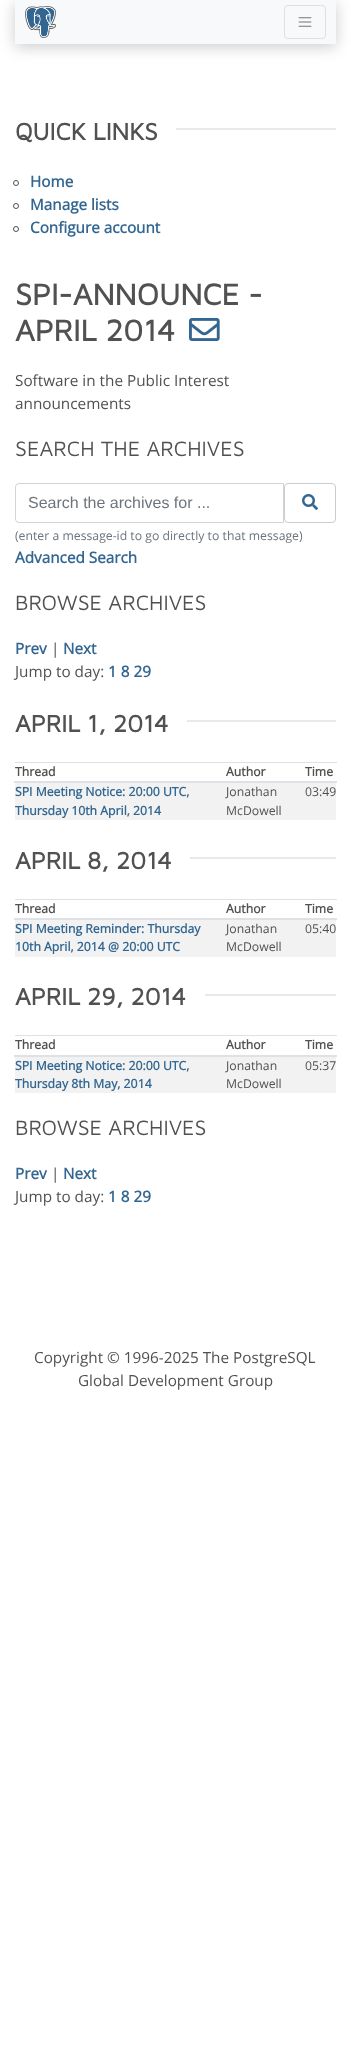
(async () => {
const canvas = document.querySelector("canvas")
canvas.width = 351
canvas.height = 2065
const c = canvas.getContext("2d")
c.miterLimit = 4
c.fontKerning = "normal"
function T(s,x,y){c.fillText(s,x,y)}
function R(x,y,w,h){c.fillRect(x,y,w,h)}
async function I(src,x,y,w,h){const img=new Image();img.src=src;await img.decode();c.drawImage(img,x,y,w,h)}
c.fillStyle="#fff"
R(0,0,351,2065)
c.fillStyle="#00000033"
c.filter="blur(7.5px)"
c.beginPath()
c.rect(15,3,321,44)
c.fill()
c.filter="none"
c.fillStyle="#f8f9fa"
R(15,0,321,44)
await I("1.png",25,6,31,32)
c.beginPath()
c.roundRect(284.5,5.5,41,33,3.5)
c.strokeStyle="#dfe0e1"
c.stroke()
await I("2.png",298,17,14,10)
c.font="bold 24.5px Maven Pro"
c.fillStyle="#515151"
T("QUICK LINKS",15,140)
c.fillStyle="#e7eae8"
R(176,128,160,2)
c.beginPath()
c.arc(16,183,2.5,0,7)
c.strokeStyle="#515151"
c.stroke()
c.font="bold 15.3px Open Sans"
c.fillStyle="#336791"
T("Home",30,187)
c.beginPath()
c.arc(16,206,2.5,0,7)
c.stroke()
T("Manage lists",30,210)
c.beginPath()
c.arc(16,229,2.5,0,7)
c.stroke()
T("Configure account",30,233)
c.font="bold 30.75px Maven Pro"
c.fillStyle="#515151"
T("SPI-ANNOUNCE -",15,305)
T("APRIL 2014",15,341)
await I("3.png",189,318,31,23)
c.font="15.3px Open Sans"
T("Software in the Public Interest",15,386)
T("announcements",15,409)
c.font="21.5px Maven Pro"
T("SEARCH THE ARCHIVES",15,456)
c.beginPath()
c.roundRect(15.5,483.5,268,39,[3.5,0,0,3.5])
c.strokeStyle="#ced4da"
c.stroke()
c.font="16px Liberation Sans"
c.fillStyle="#6c757d"
T("Search the archives for ...",28,508)
c.beginPath()
c.roundRect(284.5,483.5,51,39,3.5)
c.strokeStyle="#ccc"
c.stroke()
await I("4.png",302,494,16,16)
c.font="12.25px Open Sans"
T("(enter a message-id to go directly to that message)",15,540)
c.font="bold 15.3px Open Sans"
c.fillStyle="#336791"
T("Advanced Search",15,563)
c.font="21.5px Maven Pro"
c.fillStyle="#515151"
T("BROWSE ARCHIVES",15,610)
c.font="bold 15.3px Open Sans"
c.fillStyle="#336791"
T("Prev",15,654)
c.font="15.3px Open Sans"
c.fillStyle="#515151"
T("|",51,654)
c.font="bold 15.3px Open Sans"
c.fillStyle="#336791"
T("Next",63,654)
c.font="15.3px Open Sans"
c.fillStyle="#515151"
T("Jump to day:",15,677)
c.font="bold 15.3px Open Sans"
c.fillStyle="#336791"
T("1 8 29",108,677)
c.font="bold 24.5px Maven Pro"
c.fillStyle="#515151"
T("APRIL 1, 2014",15,732)
c.fillStyle="#e7eae8"
R(187,720,149,2)
c.font="bold 12.25px Open Sans"
c.fillStyle="#515151"
T("Thread",15,776)
T("Author",226,776)
c.fillStyle="#dee2e6"
R(15,762,322,1)
R(14,781,323,2)
c.fillStyle="#515151"
T("Time",305,776)
c.fillStyle="#f2f2f2"
R(15,783,321,37)
c.fillStyle="#336791"
T("SPI Meeting Notice: 20:00 UTC,",15,796)
T("Thursday 10th April, 2014",15,815)
c.font="12.25px Open Sans"
c.fillStyle="#515151"
T("Jonathan",226,796)
T("McDowell",226,815)
T("03:49",305,796)
c.font="bold 24.5px Maven Pro"
T("APRIL 8, 2014",15,869)
c.fillStyle="#e7eae8"
R(190,857,146,2)
c.font="bold 12.25px Open Sans"
c.fillStyle="#515151"
T("Thread",15,913)
T("Author",226,913)
c.fillStyle="#dee2e6"
R(15,899,322,1)
R(14,918,323,2)
c.fillStyle="#515151"
T("Time",305,913)
c.fillStyle="#f2f2f2"
R(15,920,321,37)
c.fillStyle="#336791"
T("SPI Meeting Reminder: Thursday",15,933)
T("10th April, 2014 @ 20:00 UTC",15,951)
c.font="12.25px Open Sans"
c.fillStyle="#515151"
T("Jonathan",226,933)
T("McDowell",226,951)
T("05:40",305,933)
c.font="bold 24.5px Maven Pro"
T("APRIL 29, 2014",15,1005)
c.fillStyle="#e7eae8"
R(205,994,131,2)
c.font="bold 12.25px Open Sans"
c.fillStyle="#515151"
T("Thread",15,1049)
T("Author",226,1049)
c.fillStyle="#dee2e6"
R(15,1035,322,1)
R(14,1055,323,2)
c.fillStyle="#515151"
T("Time",305,1049)
c.fillStyle="#f2f2f2"
R(15,1057,321,36)
c.fillStyle="#336791"
T("SPI Meeting Notice: 20:00 UTC,",15,1070)
T("Thursday 8th May, 2014",15,1088)
c.font="12.25px Open Sans"
c.fillStyle="#515151"
T("Jonathan",226,1070)
T("McDowell",226,1088)
T("05:37",305,1070)
c.font="21.5px Maven Pro"
T("BROWSE ARCHIVES",15,1135)
c.font="bold 15.3px Open Sans"
c.fillStyle="#336791"
T("Prev",15,1179)
c.font="15.3px Open Sans"
c.fillStyle="#515151"
T("|",51,1179)
c.font="bold 15.3px Open Sans"
c.fillStyle="#336791"
T("Next",63,1179)
c.font="15.3px Open Sans"
c.fillStyle="#515151"
T("Jump to day:",15,1202)
c.font="bold 15.3px Open Sans"
c.fillStyle="#336791"
T("1 8 29",108,1202)
c.font="15.3px Open Sans"
c.fillStyle="#515151"
T("Copyright © 1996-2025 The PostgreSQL",34,1363)
T("Global Development Group",78,1386)
})()
